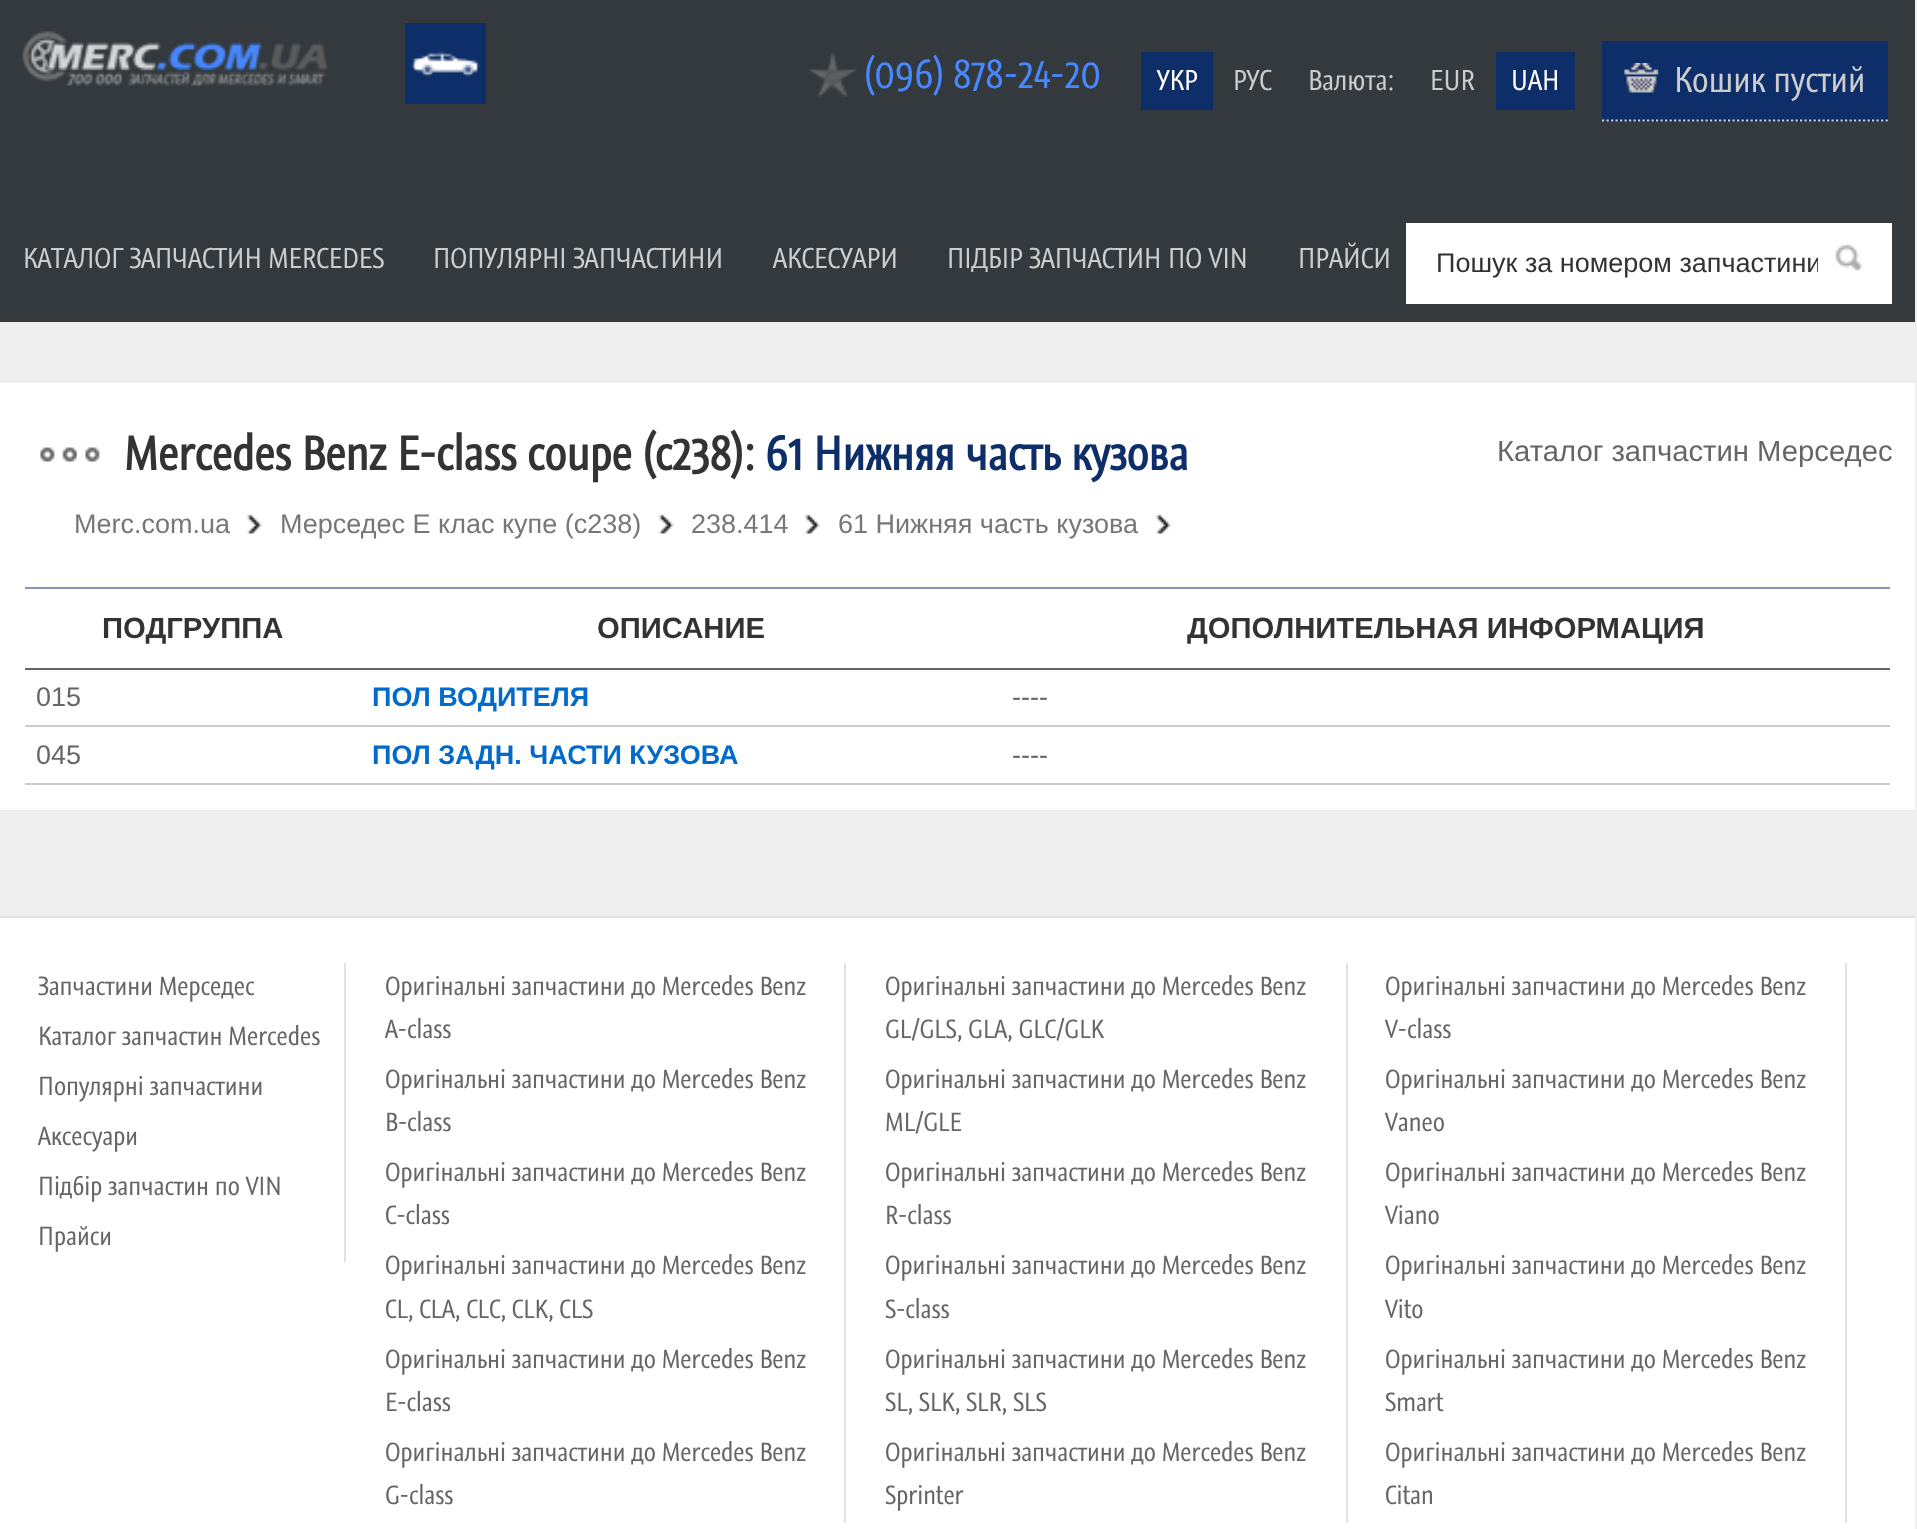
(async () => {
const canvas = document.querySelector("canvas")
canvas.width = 1917
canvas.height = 1529
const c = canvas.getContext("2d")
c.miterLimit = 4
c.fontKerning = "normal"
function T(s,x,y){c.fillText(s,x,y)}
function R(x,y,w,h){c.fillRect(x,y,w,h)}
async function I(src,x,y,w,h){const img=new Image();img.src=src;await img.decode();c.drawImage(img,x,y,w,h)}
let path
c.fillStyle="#eee"
R(0,0,1917,1529)
c.fillStyle="#34393d"
R(0,0,1915,322)
await I("1.png",22,31,306,55)
c.fillStyle="#0e2e69"
R(405,23,81,81)
await I("2.png",411,51,69,26)
await I("3.png",809,52,48,46)
c.font="38.25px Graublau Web"
c.fillStyle="#4788ff"
T("(096) 878-24-20",864,88)
c.fillStyle="#0e2e69"
R(1141,52,72,58)
c.font="27px Graublau Web"
c.fillStyle="#fff"
T("УКР",1157,90)
c.fillStyle="#ccc"
T("РУС",1233,90)
T("Валюта:",1308,90)
T("EUR",1430,90)
c.fillStyle="#0e2e69"
R(1496,52,79,58)
c.fillStyle="#fff"
T("UAH",1511,90)
c.fillStyle="#0e2e69"
R(1602,41,286,81)
await I("4.png",1624,63,35,30)
path = new Path2D("M1602 120.5h286")
c.strokeStyle="#ccc"
c.lineWidth=2.2
c.setLineDash([2.25,2.25])
c.stroke(path)
c.font="33.75px Graublau Web"
c.fillStyle="#ccc"
T("Кошик пустий",1674,92)
c.font="27px Graublau Web"
T("КАТАЛОГ ЗАПЧАСТИН MERCEDES",23,268)
T("ПОПУЛЯРНІ ЗАПЧАСТИНИ",433,268)
T("АКСЕСУАРИ",773,268)
T("ПІДБІР ЗАПЧАСТИН ПО VIN",947,268)
T("ПРАЙСИ",1298,268)
c.fillStyle="#fff"
R(1406,223,486,81)
c.save()
c.beginPath()
c.rect(1436,248,382,31)
c.clip()
c.font="27px Liberation Sans"
c.fillStyle="#333"
T("Пошук за номером запчастини",1436,272)
c.restore()
await I("5.png",1835,244,27,27)
R(0,383,1915,427)
await I("6.png",40,447,60,15)
c.font="bold 45px Graublau Web"
c.fillStyle="#333"
T("Mercedes Benz E-class coupe (c238):",124,470)
c.fillStyle="#0e2e69"
T("61 Нижняя часть кузова",765,470)
c.font="29.25px Liberation Sans"
c.fillStyle="#666"
T("Каталог запчастин Мерседес",1497,461)
c.font="27px Liberation Sans"
c.fillStyle="#777"
T("Merc.com.ua",74,533)
await I("7.png",247,514,15,20)
T("Мерседес Е клас купе (c238)",280,533)
await I("8.png",658,514,16,20)
T("238.414",691,533)
await I("9.png",805,514,15,20)
T("61 Нижняя часть кузова",838,533)
await I("10.png",1156,514,15,20)
c.fillStyle="#8794b6"
R(25,587,1865,2)
c.fillStyle="#666"
R(25,668,1865,2)
c.font="bold 29.25px Liberation Sans"
c.fillStyle="#333"
T("ПОДГРУППА",102,638)
T("ОПИСАНИЕ",597,638)
T("ДОПОЛНИТЕЛЬНАЯ ИНФОРМАЦИЯ",1187,638)
c.fillStyle="#ccc"
R(25,725,1865,2)
c.font="27px Liberation Sans"
c.fillStyle="#666"
T("015",36,706)
c.font="bold 27px Liberation Sans"
c.fillStyle="#026acb"
T("ПОЛ ВОДИТЕЛЯ",372,706)
c.font="27px Liberation Sans"
c.fillStyle="#666"
T("----",1012,706)
c.fillStyle="#ccc"
R(25,783,1865,2)
c.fillStyle="#666"
T("045",36,764)
c.font="bold 27px Liberation Sans"
c.fillStyle="#026acb"
T("ПОЛ ЗАДН. ЧАСТИ КУЗОВА",372,764)
c.font="27px Liberation Sans"
c.fillStyle="#666"
T("----",1012,764)
c.fillStyle="#fff"
R(0,918,1915,611)
c.fillStyle="#e1e1e1"
R(0,916,1915,2)
R(344,963,2,299)
c.font="24.75px Graublau Web"
c.fillStyle="#666"
T("Запчастини Мерседес",38,995)
T("Каталог запчастин Mercedes",38,1045)
T("Популярні запчастини",38,1095)
T("Аксесуари",38,1145)
T("Підбір запчастин по VIN",38,1195)
T("Прайси",38,1245)
c.fillStyle="#e1e1e1"
R(844,963,2,560)
c.fillStyle="#666"
T("Оригінальні запчастини до Mercedes Benz",385,995)
T("A-class",385,1038)
T("Оригінальні запчастини до Mercedes Benz",385,1088)
T("B-class",385,1131)
T("Оригінальні запчастини до Mercedes Benz",385,1181)
T("C-class",385,1224)
T("Оригінальні запчастини до Mercedes Benz",385,1274)
T("CL, CLA, CLC, CLK, CLS",385,1318)
T("Оригінальні запчастини до Mercedes Benz",385,1368)
T("E-class",385,1411)
T("Оригінальні запчастини до Mercedes Benz",385,1461)
T("G-class",385,1504)
c.fillStyle="#e1e1e1"
R(1346,963,2,560)
c.fillStyle="#666"
T("Оригінальні запчастини до Mercedes Benz",885,995)
T("GL/GLS, GLA, GLC/GLK",885,1038)
T("Оригінальні запчастини до Mercedes Benz",885,1088)
T("ML/GLE",885,1131)
T("Оригінальні запчастини до Mercedes Benz",885,1181)
T("R-class",885,1224)
T("Оригінальні запчастини до Mercedes Benz",885,1274)
T("S-class",885,1318)
T("Оригінальні запчастини до Mercedes Benz",885,1368)
T("SL, SLK, SLR, SLS",885,1411)
T("Оригінальні запчастини до Mercedes Benz",885,1461)
T("Sprinter",885,1504)
c.fillStyle="#e1e1e1"
R(1845,963,2,560)
c.fillStyle="#666"
T("Оригінальні запчастини до Mercedes Benz",1385,995)
T("V-class",1385,1038)
T("Оригінальні запчастини до Mercedes Benz",1385,1088)
T("Vaneo",1385,1131)
T("Оригінальні запчастини до Mercedes Benz",1385,1181)
T("Viano",1385,1224)
T("Оригінальні запчастини до Mercedes Benz",1385,1274)
T("Vito",1385,1318)
T("Оригінальні запчастини до Mercedes Benz",1385,1368)
T("Smart",1385,1411)
T("Оригінальні запчастини до Mercedes Benz",1385,1461)
T("Citan",1385,1504)
})()
